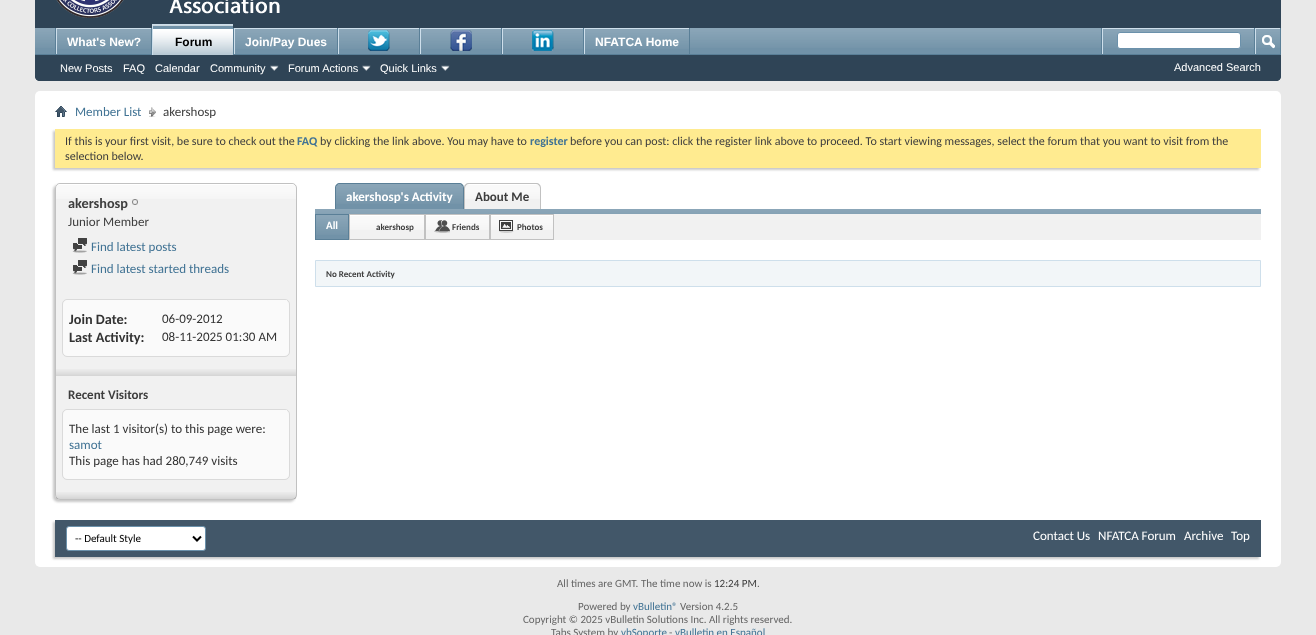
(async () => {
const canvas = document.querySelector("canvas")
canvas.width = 1316
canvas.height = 635
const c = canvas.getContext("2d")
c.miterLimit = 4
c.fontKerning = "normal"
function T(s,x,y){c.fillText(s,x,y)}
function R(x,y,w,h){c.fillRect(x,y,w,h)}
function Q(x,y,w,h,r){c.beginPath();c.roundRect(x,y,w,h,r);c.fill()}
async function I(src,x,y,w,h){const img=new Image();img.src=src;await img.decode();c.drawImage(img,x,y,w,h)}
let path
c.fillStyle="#e9e9e9"
R(0,0,1316,635)
c.fillStyle="#2f4456"
path = new Path2D("M35-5h1246v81c0 3-2 5-5 5h-1236c-3 0-5-2-5-5z")
c.fill(path)
await I("1.png",56,0,224,18)
c.beginPath()
c.roundRect(35,28,1246,53,[0,0,5,5])
c.fill()
c.fillStyle="#7192a8"
R(35,28,1245,26)
await I("2.png",35,28,1245,20)
c.fillStyle="#5a7f97"
R(151,28,1,27)
R(55,28,1,27)
c.fillStyle="#7192a8"
R(57,29,94,19)
await I("3.png",57,29,94,20)
c.fillStyle="#cedfeb"
R(56,28,95,1)
R(56,28,1,27)
c.font="bold 12px Liberation Sans"
c.fillStyle="#fff"
T("What's New?",67,46)
c.fillStyle="#5a7f97"
R(233,28,1,26)
R(337,28,1,27)
c.fillStyle="#cedfeb"
R(234,28,103,1)
R(234,28,1,27)
c.fillStyle="#5a7f97"
R(419,28,1,27)
c.fillStyle="#cedfeb"
R(338,28,81,1)
R(338,28,1,27)
c.fillStyle="#5a7f97"
R(501,28,1,27)
c.fillStyle="#cedfeb"
R(420,28,81,1)
R(420,28,1,27)
c.fillStyle="#5a7f97"
R(583,28,1,27)
c.fillStyle="#cedfeb"
R(502,28,81,1)
R(502,28,1,27)
c.fillStyle="#5a7f97"
R(689,28,1,27)
c.fillStyle="#cedfeb"
R(584,28,105,1)
R(584,28,1,27)
c.fillStyle="#5a7f97"
R(35,54,1246,1)
c.fillStyle="#7192a8"
R(153,25,80,30)
await I("4.png",153,25,80,30)
c.fillStyle="#cedfeb"
R(152,24,81,1)
R(152,24,1,31)
c.fillStyle="#000"
T("Forum",175,46)
c.fillStyle="#7192a8"
R(235,29,102,19)
await I("5.png",235,29,102,20)
c.fillStyle="#fff"
T("Join/Pay Dues",245,46)
c.fillStyle="#7192a8"
R(339,29,80,19)
await I("6.png",339,29,80,20)
await I("7.png",368,30,22,21)
R(421,29,80,19)
await I("6.png",421,29,80,20)
await I("8.png",450,30,22,21)
R(503,29,80,19)
await I("6.png",503,29,80,20)
await I("9.png",532,30,22,21)
R(585,29,104,19)
await I("10.png",585,29,104,20)
c.fillStyle="#fff"
T("NFATCA Home",595,46)
c.font="11px Liberation Sans"
T("New Posts",60,72)
T("FAQ",123,72)
T("Calendar",155,72)
T("Community",210,72)
await I("11.png",270,65,9,6)
T("Forum Actions",288,72)
await I("11.png",362,65,9,6)
T("Quick Links",380,72)
await I("11.png",441,65,9,6)
c.fillStyle="#5a7f97"
R(1101,28,1,26)
c.fillStyle="#cedfeb"
R(1102,28,152,1)
R(1102,28,1,26)
c.fillStyle="#fff"
c.beginPath()
c.roundRect(1117.5,32.5,123,16,2.5)
c.fill()
c.strokeStyle="#6b91ab"
c.stroke()
c.fillStyle="#5a7f97"
R(1280,28,1,26)
R(1254,28,1,26)
c.fillStyle="#cedfeb"
R(1255,28,25,1)
R(1255,28,1,26)
await I("12.png",1262,35,13,14)
c.fillStyle="#fff"
T("Advanced Search",1174,71)
Q(35,91,1246,476,5)
await I("13.png",55,106,12,11)
await I("14.png",149,107,7,10)
c.font="13px Carlito"
c.fillStyle="#417394"
T("Member List",75,116)
c.fillStyle="#3e3e3e"
T("akershosp",163,116)
c.fillStyle="#c8c8c8"
c.filter="blur(1px)"
c.beginPath()
c.rect(53,131,1206,39)
c.fill()
c.filter="none"
c.fillStyle="#ffeb90"
R(55,129,1206,39)
c.font="12px Carlito"
c.fillStyle="#3e3e3e"
T("If this is your first visit, be sure to check out the",65,145)
c.font="bold 12px Carlito"
c.fillStyle="#417394"
T("FAQ",297,145)
c.font="12px Carlito"
c.fillStyle="#3e3e3e"
T("by clicking the link above. You may have to",320,145)
c.font="bold 12px Carlito"
c.fillStyle="#417394"
T("register",530,145)
c.font="12px Carlito"
c.fillStyle="#3e3e3e"
T("before you can post: click the register link above to proceed. To start viewing messages, select the forum that you want to visit from the",570,145)
T("selection below.",65,160)
c.fillStyle="#c8c8c8"
c.filter="blur(1px)"
c.beginPath()
c.roundRect(53,185,242,317,5)
c.fill()
c.filter="none"
c.fillStyle="#f1f1f1"
Q(55,183,242,317,5)
await I("15.png",55,184,242,15)
c.beginPath()
c.roundRect(55.5,183.5,241,316,4.5)
c.strokeStyle="#c1c1c1"
c.stroke()
await I("16.png",58,184,236,1)
c.font="bold 14.25px Carlito"
c.fillStyle="#3e3e3e"
T("akershosp",68,208)
await I("17.png",132,199,6,6)
c.font="13px Carlito"
T("Junior Member",68,226)
await I("18.png",72,238,15,15)
c.fillStyle="#417394"
T("Find latest posts",91,251)
await I("18.png",72,260,15,15)
T("Find latest started threads",91,273)
c.beginPath()
c.roundRect(62.5,299.5,227,57,4.5)
c.strokeStyle="#dadada"
c.stroke()
c.fillStyle="#fafafa"
Q(63,300,226,56,5)
R(286,300,1,1)
c.font="bold 14.25px Carlito"
c.fillStyle="#333"
T("Join Date:",69,324)
c.font="13px Carlito"
T("06-09-2012",162,323)
c.font="bold 14.25px Carlito"
T("Last Activity:",69,342)
c.font="13px Carlito"
T("08-11-2025 01:30 AM",162,341)
await I("19.png",56,369,240,7)
c.font="bold 13px Carlito"
c.fillStyle="#3e3e3e"
T("Recent Visitors",68,399)
c.beginPath()
c.roundRect(62.5,409.5,227,70,4.5)
c.stroke()
c.fillStyle="#fafafa"
Q(63,410,226,69,5)
R(286,410,1,1)
c.font="13px Carlito"
c.fillStyle="#333"
T("The last 1 visitor(s) to this page were:",69,433)
c.fillStyle="#417394"
T("samot",69,449)
c.fillStyle="#333"
T("This page has had 280,749 visits",69,465)
await I("20.png",56,492,240,7)
c.fillStyle="#7192a8"
c.beginPath()
c.roundRect(336,184,127,25,[4,4,0,0])
c.fill()
await I("21.png",336,184,127,20)
c.fillStyle="#5a7f97"
path = new Path2D("M340 183h119c3 0 5 2 5 5v21h-129v-21c0-3 2-5 5-5zm0 1h119c2 0 4 2 4 4v21h-127v-21c0-2 2-4 4-4z")
c.fill(path,"evenodd")
c.font="bold 13px Carlito"
c.fillStyle="#fff"
T("akershosp's Activity",346,201)
c.fillStyle="#f1f1f1"
c.beginPath()
c.roundRect(465,184,75,25,[4,4,0,0])
c.fill()
await I("22.png",465,184,75,15)
c.fillStyle="#c1c1c1"
path = new Path2D("M469 183h67c3 0 5 2 5 5v21h-77v-21c0-3 2-5 5-5zm0 1h67c2 0 4 2 4 4v21h-75v-21c0-2 2-4 4-4z")
c.fill(path,"evenodd")
c.fillStyle="#3e3e3e"
T("About Me",475,201)
c.fillStyle="#7192a8"
R(315,209,946,5)
await I("23.png",315,209,946,5)
c.fillStyle="#f1f1f1"
R(350,214,911,26)
c.fillStyle="#7192a8"
R(316,215,32,24)
await I("24.png",316,215,32,20)
c.strokeStyle="#5a7f97"
c.strokeRect(315.5,214.5,33,25)
c.font="bold 11px Carlito"
c.fillStyle="#fff"
T("All",326,229)
await I("25.png",350,215,74,15)
c.strokeStyle="#c1c1c1"
c.strokeRect(349.5,214.5,75,25)
c.font="bold 9px Carlito"
c.fillStyle="#3e3e3e"
T("akershosp",376,230)
await I("26.png",426,215,63,15)
c.strokeRect(425.5,214.5,64,25)
await I("27.png",434,220,16,13)
T("Friends",452,230)
await I("28.png",491,215,62,15)
c.strokeRect(490.5,214.5,63,25)
await I("29.png",499,220,15,13)
T("Photos",517,230)
c.fillStyle="#f2f6f8"
c.beginPath()
c.rect(315.5,260.5,945,26)
c.fill()
c.strokeStyle="#cedfeb"
c.stroke()
c.fillStyle="#3e3e3e"
T("No Recent Activity",326,277)
c.fillStyle="#c8c8c8"
c.filter="blur(1px)"
c.beginPath()
c.rect(53,522,1206,37)
c.fill()
c.filter="none"
c.fillStyle="#425769"
R(55,520,1206,37)
c.fillStyle="#fff"
c.beginPath()
c.roundRect(66.5,526.5,139,24,2.5)
c.fill()
c.strokeStyle="#6b91ab"
c.stroke()
path = new Path2D("M193 536.5l4 4l4-4")
c.strokeStyle="#000"
c.lineWidth=2
c.stroke(path)
c.font="11px Carlito"
c.fillStyle="#000"
T("-- Default Style",75,542)
c.font="13px Carlito"
c.fillStyle="#fff"
T("Contact Us",1033,540)
T("NFATCA Forum",1098,540)
T("Archive",1184,540)
T("Top",1231,540)
c.font="11px Carlito"
c.fillStyle="#666"
T("All times are GMT. The time now is",557,587)
c.fillStyle="#3e3e3e"
T("12:24 PM",714,587)
c.fillStyle="#666"
T(".",757,587)
T("Powered by",578,610)
c.fillStyle="#417394"
T("vBulletin®",633,610)
c.fillStyle="#666"
T("Version 4.2.5",680,610)
T("Copyright © 2025 vBulletin Solutions Inc. All rights reserved.",523,623)
T("Tabs System by",551,636)
c.fillStyle="#417394"
T("vbSoporte",621,636)
c.fillStyle="#666"
T("-",669,636)
c.fillStyle="#417394"
T("vBulletin en Español",675,636)
})()
